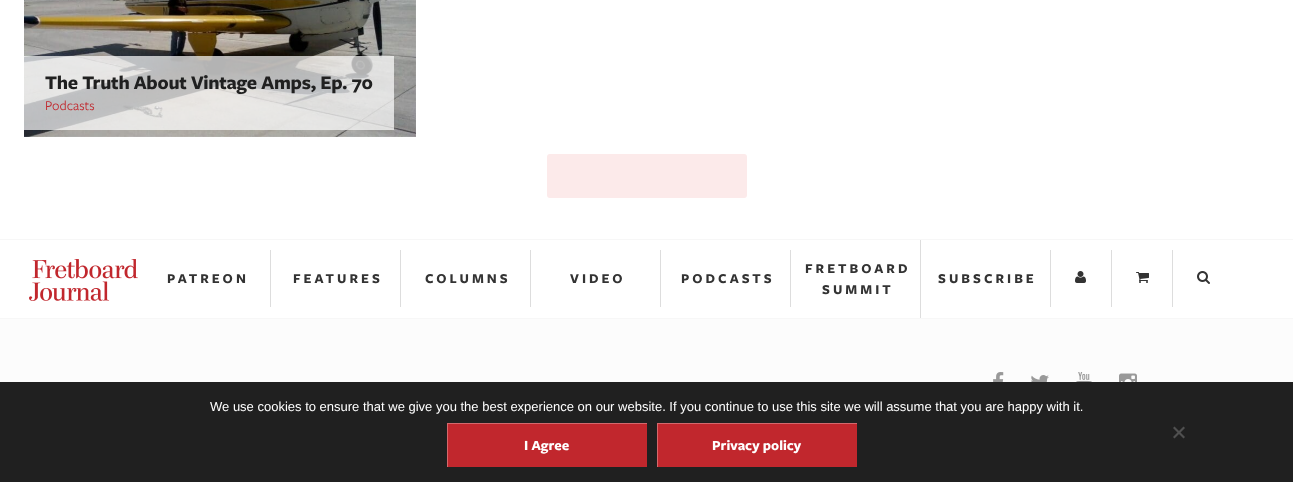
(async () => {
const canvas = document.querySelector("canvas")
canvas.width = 1293
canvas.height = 482
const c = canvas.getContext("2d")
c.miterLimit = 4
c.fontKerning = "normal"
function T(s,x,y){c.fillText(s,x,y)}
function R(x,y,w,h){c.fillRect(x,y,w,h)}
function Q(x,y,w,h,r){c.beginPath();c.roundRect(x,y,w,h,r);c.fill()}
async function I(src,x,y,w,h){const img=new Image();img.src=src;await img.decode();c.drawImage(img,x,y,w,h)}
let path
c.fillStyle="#fff"
R(0,0,1293,482)
await I("1.png",24,0,392,137)
c.fillStyle="#ffffffb3"
R(24,56,370,74)
c.letterSpacing="-0.25px"
c.font="bold 20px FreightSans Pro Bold"
c.fillStyle="#202020"
T("The Truth About Vintage Amps, Ep. 70",45,89)
c.letterSpacing="0px"
c.font="14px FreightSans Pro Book"
c.fillStyle="#c1272d"
T("Podcasts",45,110)
c.fillStyle="#fceaea"
Q(547,154,200,44,3)
c.fillStyle="#f7f7f7"
R(0,239,1293,1)
R(0,318,1293,1)
await I("2.png",29,259,109,42)
c.fillStyle="#ddd"
R(270,250,1,57)
c.letterSpacing="3px"
c.font="bold 14px FreightSans Pro Bold"
c.fillStyle="#333"
T("PATREON",167,283)
c.fillStyle="#ddd"
R(400,250,1,57)
c.fillStyle="#333"
T("FEATURES",293,283)
c.fillStyle="#ddd"
R(530,250,1,57)
c.fillStyle="#333"
T("COLUMNS",425,283)
c.fillStyle="#ddd"
R(660,250,1,57)
c.fillStyle="#333"
T("VIDEO",570,283)
c.fillStyle="#ddd"
R(790,250,1,57)
c.fillStyle="#333"
T("PODCASTS",681,283)
c.fillStyle="#ddd"
R(920,240,1,78)
c.fillStyle="#333"
T("FRETBOARD",805,273)
T("SUMMIT",822,294)
c.fillStyle="#ddd"
R(1050,250,1,57)
c.fillStyle="#333"
T("SUBSCRIBE",938,283)
c.fillStyle="#ddd"
R(1111,250,1,57)
await I("3.png",1075,271,11,12)
R(1172,250,1,57)
await I("4.png",1136,272,13,11)
await I("5.png",1197,271,13,13)
c.fillStyle="#fcfcfc"
R(0,319,1293,63)
await I("6.png",993,372,11,10)
await I("7.png",1031,375,18,7)
await I("8.png",1076,372,16,10)
await I("9.png",1119,373,18,9)
c.fillStyle="#202020"
R(0,382,1293,100)
c.letterSpacing="0px"
c.font="13px Liberation Sans"
c.fillStyle="#fff"
T("We use cookies to ensure that we give you the best experience on our website. If you continue to use this site we will assume that you are happy with it.",210,411)
c.fillStyle="#505050"
path = new Path2D("M1183.5 426.5l1.5 1.5l-10.5 10.5l-1.5-1.5z")
c.fill(path)
path = new Path2D("M1173 428l1.5-1.5l10.5 10.5l-1.5 1.5z")
c.fill(path)
c.fillStyle="#c1272d"
R(448,424,199,43)
c.save()
c.beginPath()
c.rect(447,423,200,44)
c.clip()
c.fillStyle="#d4686c"
path = new Path2D("M348 324h398v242h-398zm100 100h200v44h-200z")
c.fill(path,"evenodd")
c.restore()
c.font="bold 14.5px FreightSans Pro Bold"
c.fillStyle="#fff"
T("I Agree",524,450)
c.fillStyle="#c1272d"
R(658,424,199,43)
c.save()
c.beginPath()
c.rect(657,423,200,44)
c.clip()
c.fillStyle="#d4686c"
path = new Path2D("M558 324h398v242h-398zm100 100h200v44h-200z")
c.fill(path,"evenodd")
c.restore()
c.fillStyle="#fff"
T("Privacy policy",712,450)
})()
